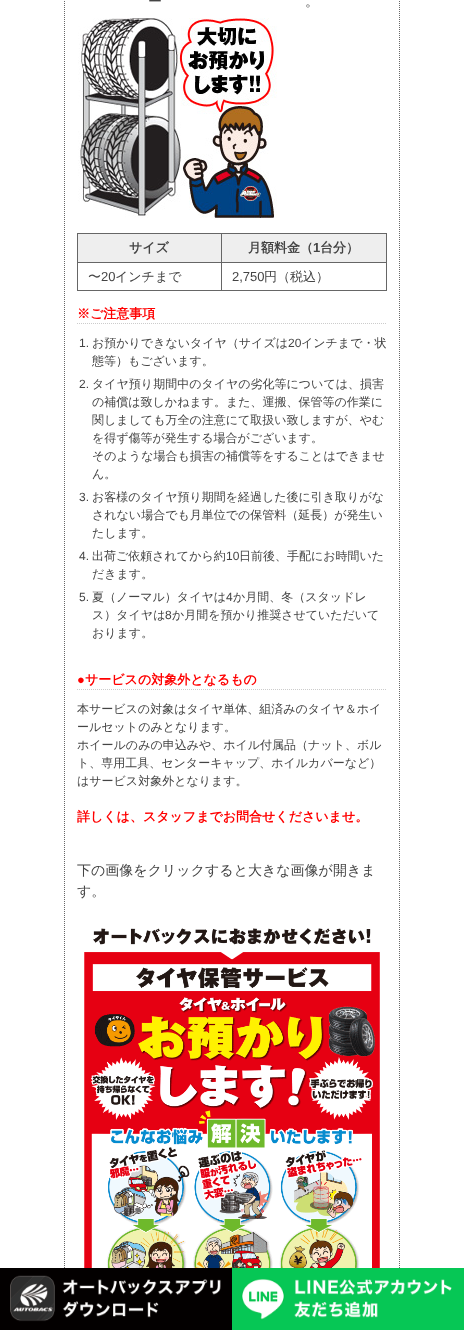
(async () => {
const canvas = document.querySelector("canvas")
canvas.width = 464
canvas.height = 1330
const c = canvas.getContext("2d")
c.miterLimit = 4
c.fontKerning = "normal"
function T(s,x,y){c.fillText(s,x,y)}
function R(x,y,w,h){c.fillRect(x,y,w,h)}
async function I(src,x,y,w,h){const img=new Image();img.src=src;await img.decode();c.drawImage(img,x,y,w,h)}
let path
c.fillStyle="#fff"
R(0,0,464,1330)
path = new Path2D("M399.5-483v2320")
c.strokeStyle="#666"
c.setLineDash([1,1])
c.stroke(path)
path = new Path2D("M64.5-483v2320")
c.stroke(path)
c.font="500 14px WenQuanYi Zen Hei"
c.fillStyle="#444"
T("ー",148,6)
T("。",305,6)
await I("1.png",78,18,199,200)
c.fillStyle="#666"
R(77,233,310,1)
R(386,233,1,58)
R(77,290,310,1)
R(77,233,1,58)
c.fillStyle="#eee"
R(78,234,143,28)
c.font="bold 13px WenQuanYi Zen Hei"
c.fillStyle="#444"
T("サイズ",129,252)
c.fillStyle="#eee"
R(222,234,164,28)
c.fillStyle="#666"
R(221,262,166,1)
R(221,262,1,29)
R(77,262,145,1)
R(221,233,1,30)
c.fillStyle="#444"
T("月額料金（",248,252)
c.font="bold 13px Liberation Sans"
T("1",313,252)
c.font="bold 13px WenQuanYi Zen Hei"
T("台分）",320,252)
c.font="500 13px WenQuanYi Zen Hei"
T("〜",88,281)
c.font="13px Liberation Sans"
T("20",101,281)
c.font="500 13px WenQuanYi Zen Hei"
T("インチまで",115,281)
c.font="13px Liberation Sans"
T("2,750",232,281)
c.font="500 13px WenQuanYi Zen Hei"
T("円（税込）",264,281)
path = new Path2D("M77 323.5h310")
c.strokeStyle="#ccc"
c.stroke(path)
c.font="bold 13px WenQuanYi Zen Hei"
c.fillStyle="#f00"
T("※ご注意事項",77,318)
c.font="12px Liberation Sans"
c.fillStyle="#444"
T("1.",79,347)
c.font="500 12px WenQuanYi Zen Hei"
T("お預かりできないタイヤ（サイズは",92,347)
c.font="12px Liberation Sans"
T("20",288,347)
c.font="500 12px WenQuanYi Zen Hei"
T("インチまで・状",301,347)
T("態等）もございます。",92,365)
c.font="12px Liberation Sans"
T("2.",79,388)
c.font="500 12px WenQuanYi Zen Hei"
T("タイヤ預り期間中のタイヤの劣化等については、損害",92,388)
T("の補償は致しかねます。また、運搬、保管等の作業に",92,406)
T("関しましても万全の注意にて取扱い致しますが、やむ",92,424)
T("を得ず傷等が発生する場合がございます。",92,442)
T("そのような場合も損害の補償等をすることはできませ",92,460)
T("ん。",92,478)
c.font="12px Liberation Sans"
T("3.",79,501)
c.font="500 12px WenQuanYi Zen Hei"
T("お客様のタイヤ預り期間を経過した後に引き取りがな",92,501)
T("されない場合でも月単位での保管料（延長）が発生い",92,519)
T("たします。",92,537)
c.font="12px Liberation Sans"
T("4.",79,560)
c.font="500 12px WenQuanYi Zen Hei"
T("出荷ご依頼されてから約",92,560)
c.font="12px Liberation Sans"
T("10",226,560)
c.font="500 12px WenQuanYi Zen Hei"
T("日前後、手配にお時間いた",239,560)
T("だきます。",92,578)
c.font="12px Liberation Sans"
T("5.",79,601)
c.font="500 12px WenQuanYi Zen Hei"
T("夏（ノーマル）タイヤは",92,601)
c.font="12px Liberation Sans"
T("4",226,601)
c.font="500 12px WenQuanYi Zen Hei"
T("か月間、冬（スタッドレ",233,601)
T("ス）タイヤは",92,619)
c.font="12px Liberation Sans"
T("8",165,619)
c.font="500 12px WenQuanYi Zen Hei"
T("か月間を預かり推奨させていただいて",172,619)
T("おります。",92,637)
path = new Path2D("M77 689.5h310")
c.stroke(path)
c.font="bold 13px Liberation Sans"
c.fillStyle="#f00"
T("●",77,684)
c.font="bold 13px WenQuanYi Zen Hei"
T("サービスの対象外となるもの",85,684)
c.font="500 12px WenQuanYi Zen Hei"
c.fillStyle="#444"
T("本サービスの対象はタイヤ単体、組済みのタイヤ＆ホイ",77,713)
T("ールセットのみとなります。",77,731)
T("ホイールのみの申込みや、ホイル付属品（ナット、ボル",77,749)
T("ト、専用工具、センターキャップ、ホイルカバーなど）",77,767)
T("はサービス対象外となります。",77,785)
c.font="bold 13px WenQuanYi Zen Hei"
c.fillStyle="#f00"
T("詳しくは、スタッフまでお問合せくださいませ。",77,821)
c.font="500 14px WenQuanYi Zen Hei"
c.fillStyle="#444"
T("下の画像をクリックすると大きな画像が開きま",77,875)
T("す。",77,896)
await I("2.png",84,928,296,340)
await I("3.png",0,1268,232,62)
await I("4.png",232,1268,232,62)
})()
